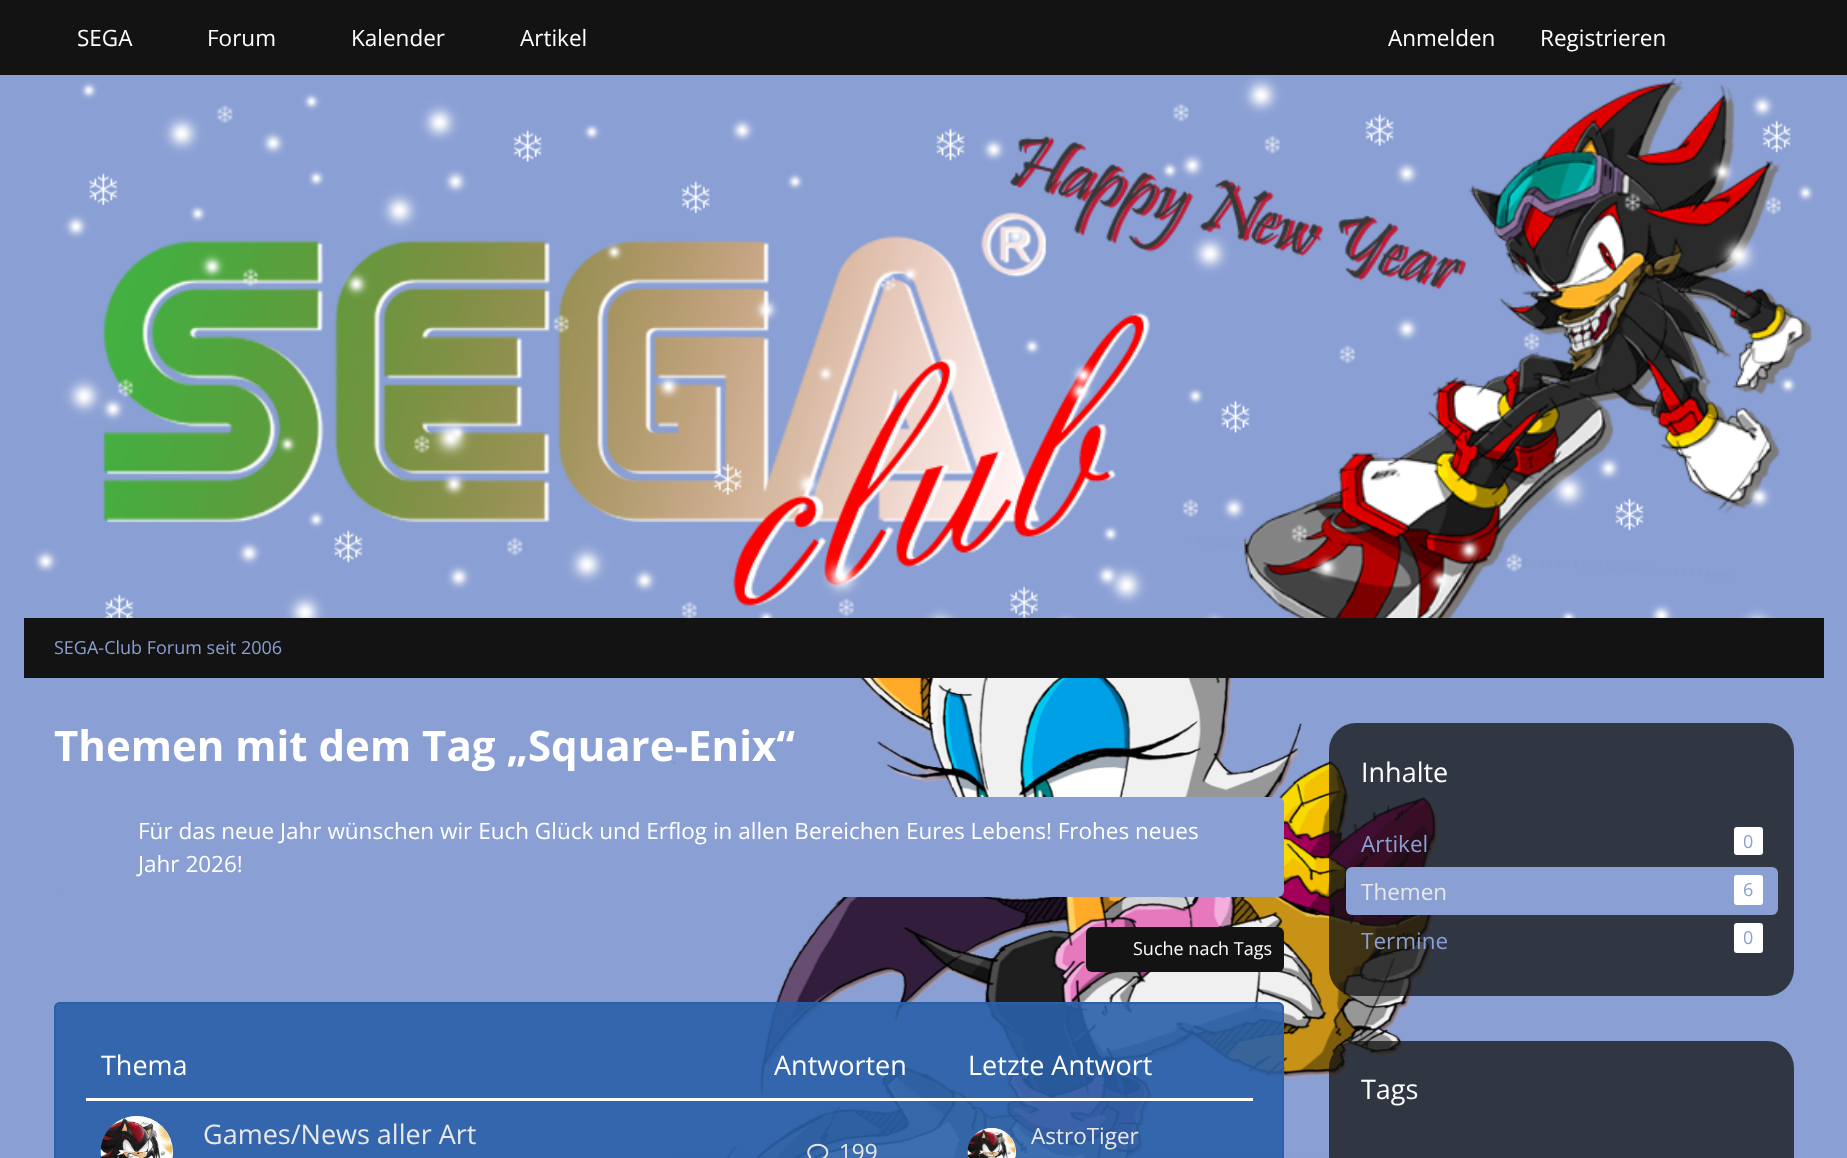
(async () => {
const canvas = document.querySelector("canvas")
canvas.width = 1847
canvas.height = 1158
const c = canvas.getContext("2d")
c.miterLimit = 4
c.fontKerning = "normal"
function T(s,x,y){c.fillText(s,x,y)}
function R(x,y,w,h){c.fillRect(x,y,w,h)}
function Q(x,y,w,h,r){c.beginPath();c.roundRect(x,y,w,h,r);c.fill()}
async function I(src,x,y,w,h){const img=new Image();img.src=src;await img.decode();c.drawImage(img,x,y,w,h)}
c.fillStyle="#8a9fd4"
R(0,0,1847,1158)
c.fillStyle="#131313"
R(0,0,1847,75)
c.font="22.5px Open Sans"
c.fillStyle="#fff"
T("SEGA",77,46)
T("Forum",207,46)
T("Kalender",351,46)
T("Artikel",520,46)
T("Anmelden",1388,46)
T("Registrieren",1540,46)
await I("1.png",33,75,1781,543)
c.fillStyle="#131313"
R(24,618,1800,60)
c.font="18px Open Sans"
c.fillStyle="#8a9fd4"
T("SEGA-Club Forum seit 2006",54,654)
await I("2.png",672,678,766,480)
c.font="bold 42px Open Sans"
c.fillStyle="#fff"
T("Themen mit dem Tag „Square-Enix“",54,761)
c.fillStyle="#8a9fd4"
c.beginPath()
c.roundRect(55,798,1228,98,5)
c.fill()
c.strokeStyle="#8a9fd4"
c.lineWidth=2
c.stroke()
c.font="22.5px Open Sans"
c.fillStyle="#fff"
T("Für das neue Jahr wünschen wir Euch Glück und Erflog in allen Bereichen Eures Lebens! Frohes neues",138,839)
T("Jahr 2026!",138,872)
c.fillStyle="#131313"
Q(1086,927,198,45,6)
c.font="18px Open Sans"
c.fillStyle="#fff"
T("Suche nach Tags",1133,955)
c.fillStyle="#295fa7e6"
Q(54,1002,1230,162,6)
c.beginPath()
c.roundRect(55,1003,1228,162,5)
c.strokeStyle="#295fa7e6"
c.stroke()
c.fillStyle="#fff"
R(86,1098,1167,3)
c.font="27px Open Sans"
T("Thema",101,1075)
T("Antworten",774,1075)
T("Letzte Antwort",968,1075)
c.beginPath()
c.arc(137,1152,36,0,7)
c.fill()
await I("3.png",100,1116,73,42)
c.fillStyle="#e8e8e8"
T("Games/News aller Art",203,1144)
await I("4.png",807,1143,22,15)
c.font="22.5px Open Sans"
T("199",839,1160)
c.fillStyle="#fff"
c.beginPath()
c.arc(992,1152,24,0,7)
c.fill()
await I("5.png",967,1128,49,30)
c.fillStyle="#e8e8e8"
T("AstroTiger",1031,1144)
c.fillStyle="#131313bf"
Q(1329,723,465,273,27)
c.font="27px Open Sans"
c.fillStyle="#fff"
T("Inhalte",1361,782)
c.font="22.5px Open Sans"
c.fillStyle="#8a9fd4"
T("Artikel",1361,852)
c.fillStyle="#fff"
Q(1734,827,29,28,3)
c.font="18px Open Sans"
c.fillStyle="#8a9fd4"
T("0",1743,848)
Q(1346,867,432,48,6)
c.font="22.5px Open Sans"
c.fillStyle="#e8e8e8"
T("Themen",1361,900)
c.fillStyle="#fff"
Q(1734,875,29,30,3)
c.font="18px Open Sans"
c.fillStyle="#8a9fd4"
T("6",1743,896)
c.font="22.5px Open Sans"
T("Termine",1361,949)
c.fillStyle="#fff"
Q(1734,923,29,30,3)
c.font="18px Open Sans"
c.fillStyle="#8a9fd4"
T("0",1743,944)
c.fillStyle="#131313bf"
Q(1329,1041,465,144,27)
c.font="27px Open Sans"
c.fillStyle="#fff"
T("Tags",1361,1099)
})()
